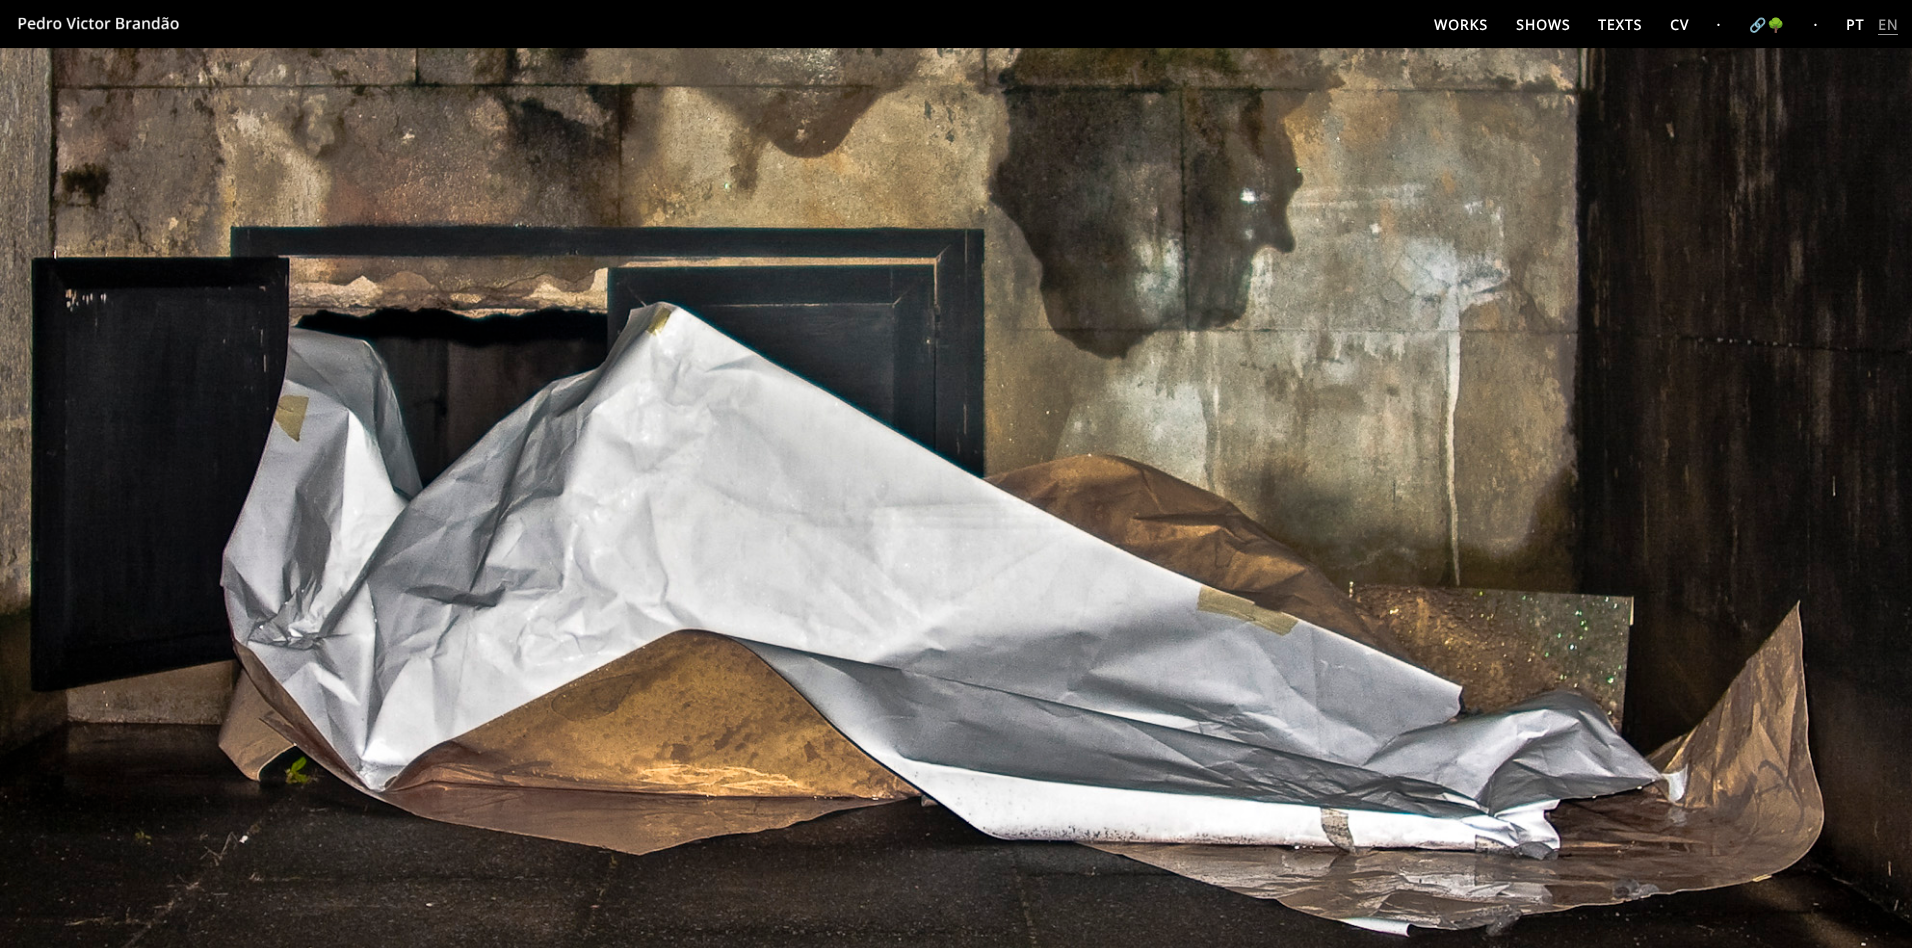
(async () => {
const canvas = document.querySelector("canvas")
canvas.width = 1912
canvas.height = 948
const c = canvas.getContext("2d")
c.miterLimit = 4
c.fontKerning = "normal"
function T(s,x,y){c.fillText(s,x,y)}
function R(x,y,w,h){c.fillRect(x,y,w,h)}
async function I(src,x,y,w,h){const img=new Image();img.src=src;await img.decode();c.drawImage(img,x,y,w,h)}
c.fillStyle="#fff"
R(0,0,1912,948)
await I("2.png",0,48,1912,900)
c.fillStyle="#0000001a"
R(0,48,1782,1)
c.fillStyle="#000"
R(0,0,1912,48)
await I("1.png",18,16,161,14)
c.letterSpacing="1px"
c.font="bold 14px Noto Sans Wancho"
c.fillStyle="#fff"
T("WORKS",1434,30)
T("SHOWS",1516,30)
T("TEXTS",1598,30)
T("CV",1670,30)
T("·",1716,30)
c.font="bold 14px Noto Color Emoji"
T("🔗🌳",1749,30)
c.font="bold 14px Noto Sans Wancho"
T("·",1813,30)
T("PT",1846,30)
c.fillStyle="#999"
T("EN",1878,30)
R(1878,34,20,1)
})()
